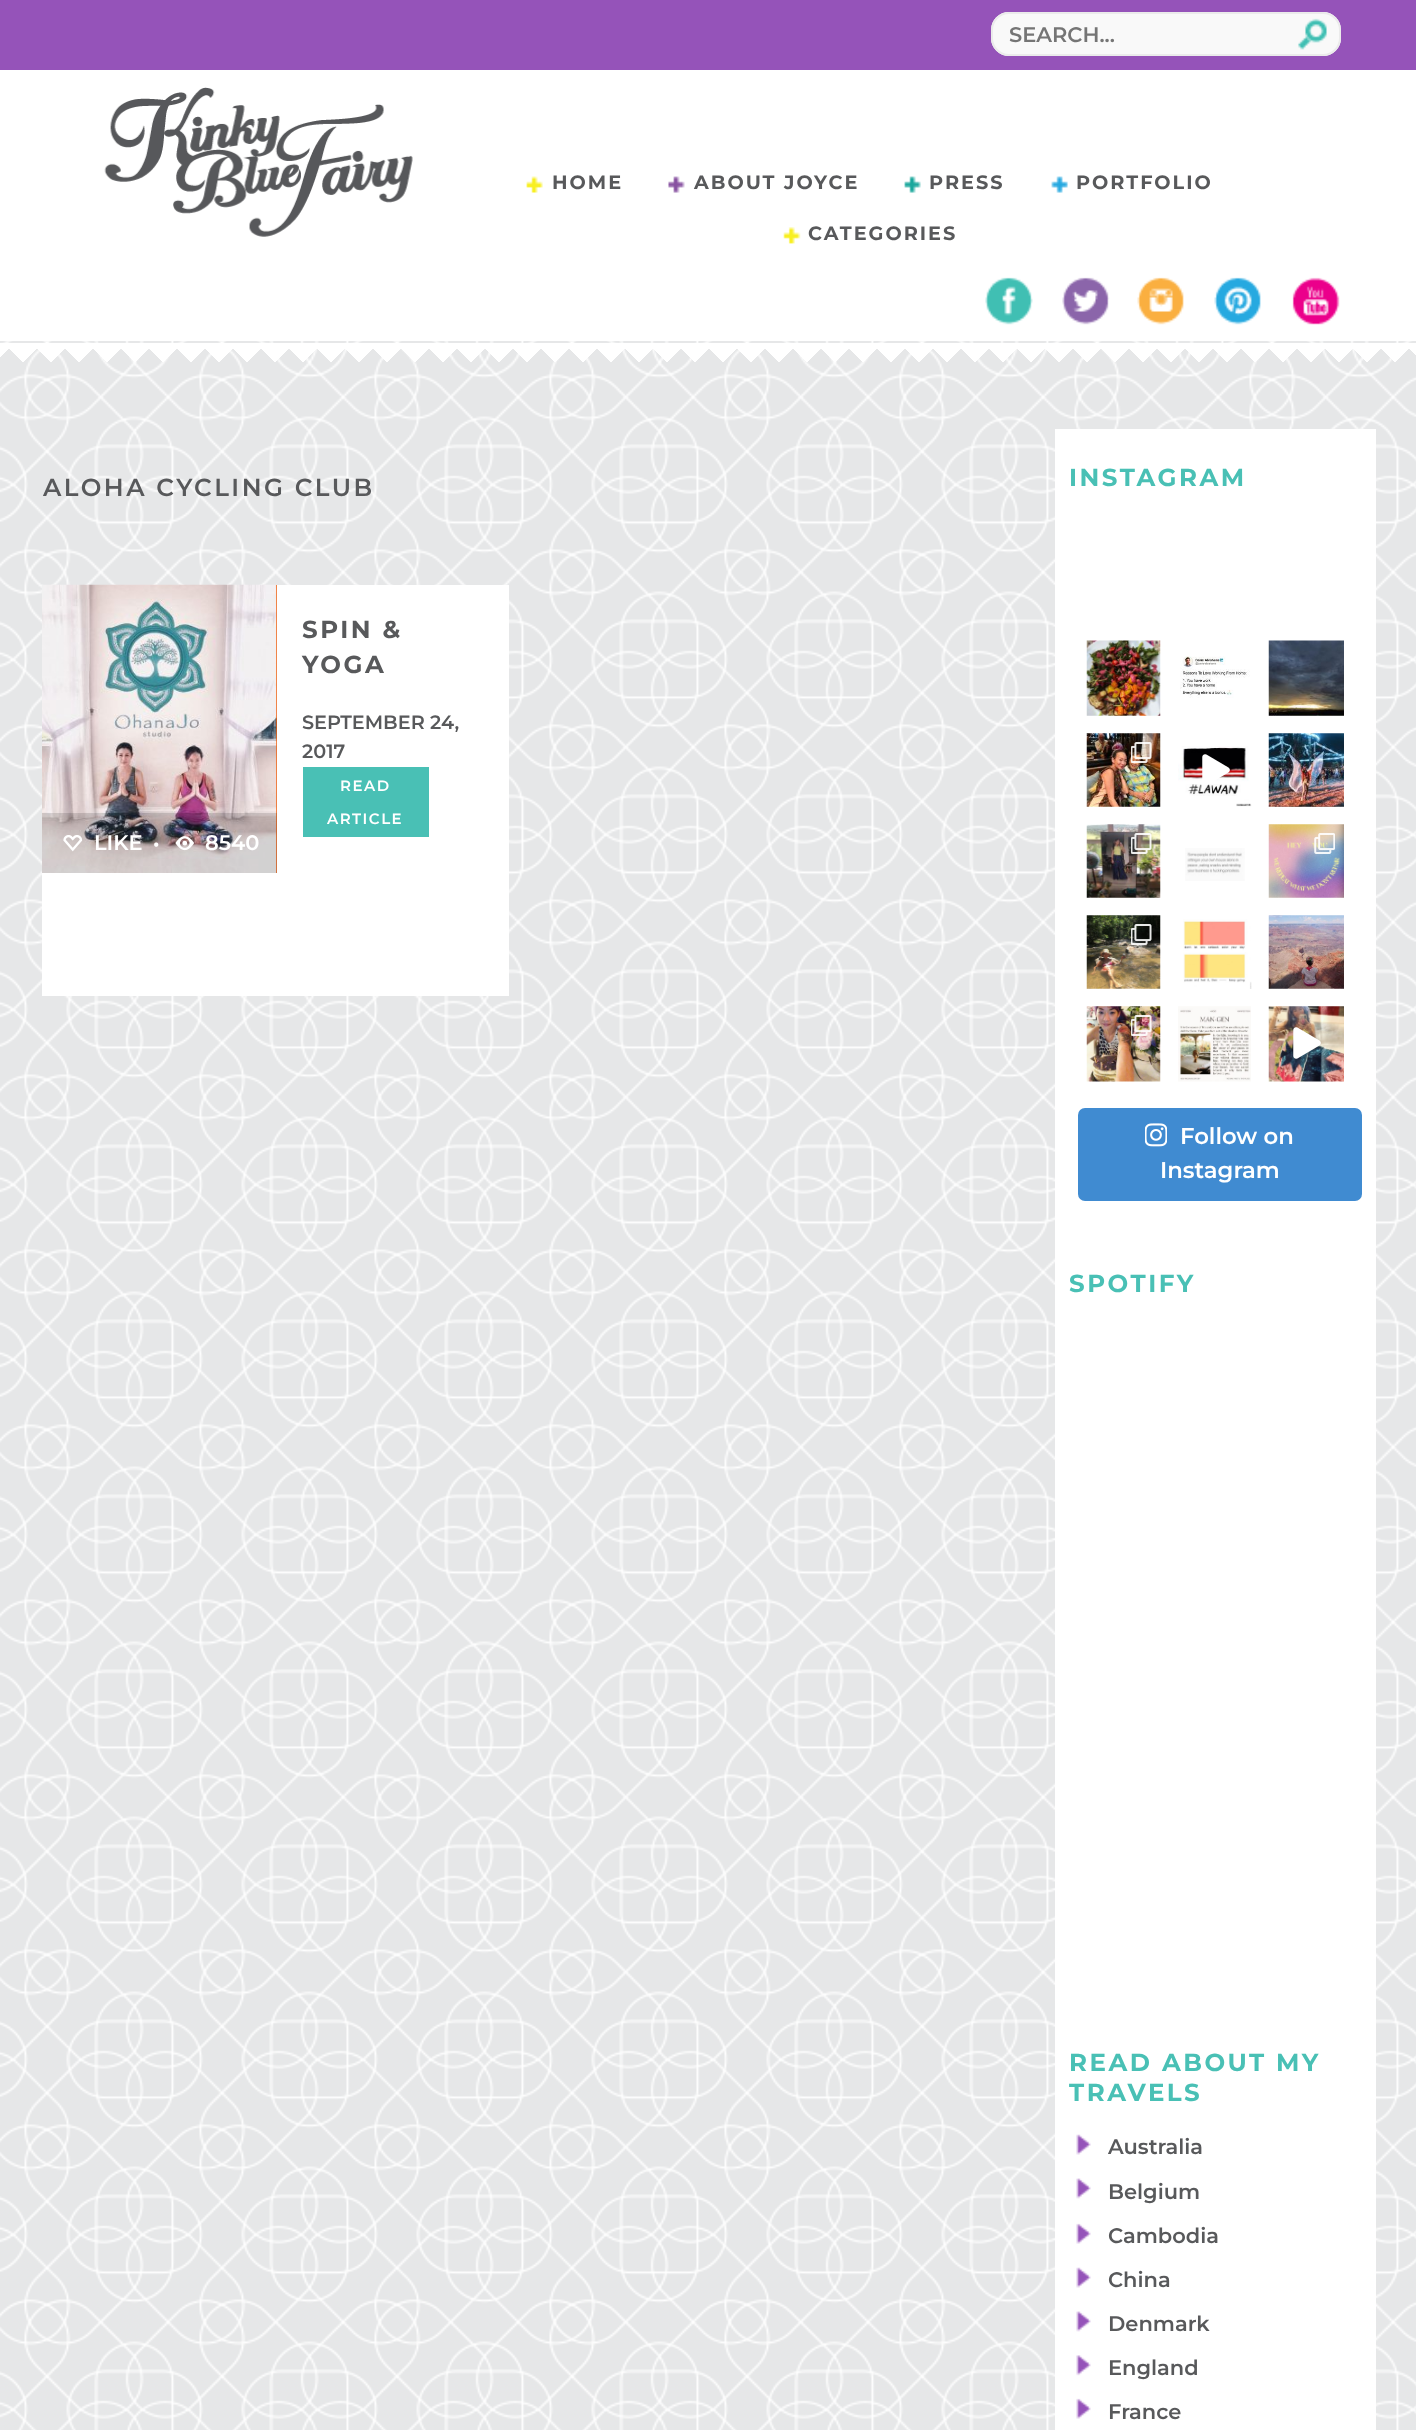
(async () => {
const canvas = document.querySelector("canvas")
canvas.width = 1416
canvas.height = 2430
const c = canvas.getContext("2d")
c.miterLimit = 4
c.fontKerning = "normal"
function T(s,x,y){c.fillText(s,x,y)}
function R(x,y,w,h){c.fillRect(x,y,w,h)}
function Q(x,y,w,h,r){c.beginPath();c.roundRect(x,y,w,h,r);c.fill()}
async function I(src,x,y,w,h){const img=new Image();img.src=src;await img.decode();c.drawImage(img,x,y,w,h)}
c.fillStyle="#fff"
R(0,0,1416,2430)
await I("1.png",0,341,1416,2089)
c.fillStyle="#9553b9"
R(0,0,1416,70)
c.fillStyle="#fff"
Q(991,12,350,44,18)
await I("2.png",991,14,348,42)
c.beginPath()
c.roundRect(992,13,348,42,17)
c.strokeStyle="#ebebeb"
c.lineWidth=2
c.stroke()
c.font="600 21px Montserrat"
c.fillStyle="#757575"
T("SEARCH...",1009,42)
await I("3.png",1298,18,29,32)
await I("4.png",104,87,309,150)
await I("5.png",526,176,17,17)
c.letterSpacing="2px"
c.font="bold 19.25px Montserrat"
c.fillStyle="#58595b"
T("HOME",552,189)
await I("6.png",668,176,17,17)
T("ABOUT JOYCE",694,189)
await I("7.png",904,176,17,17)
T("PRESS",929,189)
await I("8.png",1051,176,17,17)
T("PORTFOLIO",1076,189)
await I("9.png",783,227,18,17)
T("CATEGORIES",808,240)
await I("10.png",985,277,48,48)
await I("11.png",1062,277,48,48)
await I("12.png",1137,277,47,48)
await I("13.png",1214,277,47,48)
await I("14.png",1292,277,48,48)
await I("15.png",0,343,1409,19)
await I("16.png",9,343,1407,19)
c.letterSpacing="2.5px"
c.font="600 24.5px Montserrat"
T("ALOHA CYCLING CLUB",43,496)
c.fillStyle="#fff"
R(42,585,467,411)
c.font="bold 24.5px Montserrat"
c.fillStyle="#58595b"
T("SPIN &",302,638)
T("YOGA",302,673)
c.letterSpacing="0px"
c.font="600 19.25px Montserrat"
T("SEPTEMBER 24,",302,729)
T("2017",302,758)
c.fillStyle="#49c0b5"
R(303,767,126,70)
c.letterSpacing="1.5px"
c.font="600 15px Montserrat"
c.fillStyle="#fff"
T("READ",340,791)
T("ARTICLE",327,824)
c.fillStyle="#ef610f"
R(276,585,1,288)
await I("17.png",42,584,235,289)
c.fillStyle="#00000021"
R(42,813,235,60)
await I("18.png",63,835,20,17)
c.letterSpacing="0px"
c.font="600 21px Montserrat"
c.fillStyle="#fff"
T("LIKE",94,850)
c.font="600 19.25px Montserrat"
T("•",153,850)
await I("19.png",175,836,19,15)
c.font="600 21px Montserrat"
T("8540",205,850)
R(1055,429,321,2001)
c.letterSpacing="2.5px"
c.font="bold 24.5px Montserrat"
c.fillStyle="#49c0b5"
T("INSTAGRAM",1069,486)
await I("20.png",1086,640,75,76)
await I("21.png",1180,656,70,42)
await I("22.png",1268,640,76,76)
await I("23.png",1086,733,75,74)
await I("24.png",1131,742,21,21)
await I("25.png",1178,746,74,61)
await I("26.png",1202,754,28,31)
await I("27.png",1268,733,76,74)
await I("28.png",1086,824,75,74)
await I("29.png",1131,833,21,21)
await I("30.png",1185,848,60,33)
await I("31.png",1268,824,76,74)
await I("32.png",1314,833,21,21)
await I("33.png",1086,915,75,74)
await I("34.png",1131,924,21,21)
await I("35.png",1183,919,69,70)
await I("36.png",1268,915,76,74)
await I("37.png",1086,1006,75,76)
await I("38.png",1131,1015,21,21)
await I("39.png",1178,1006,73,76)
await I("40.png",1268,1006,76,76)
await I("41.png",1293,1027,28,32)
c.fillStyle="#408bd1"
Q(1078,1108,284,93,7)
await I("42.png",1145,1123,22,24)
c.letterSpacing="0px"
c.font="600 22.75px Montserrat"
c.fillStyle="#fff"
T("Follow on",1180,1144)
T("Instagram",1160,1178)
c.letterSpacing="2.5px"
c.font="bold 24.5px Montserrat"
c.fillStyle="#49c0b5"
T("SPOTIFY",1069,1292)
T("READ ABOUT MY",1069,2071)
T("TRAVELS",1069,2101)
await I("43.png",1076,2134,15,21)
c.letterSpacing="0px"
c.font="600 21px Montserrat"
c.fillStyle="#58595b"
T("Australia",1108,2154)
await I("44.png",1076,2178,15,21)
T("Belgium",1108,2199)
await I("45.png",1076,2223,15,21)
T("Cambodia",1108,2243)
await I("43.png",1076,2267,15,21)
T("China",1108,2287)
await I("44.png",1076,2311,15,21)
T("Denmark",1108,2331)
await I("46.png",1076,2355,15,21)
T("England",1108,2375)
await I("45.png",1076,2398,15,21)
T("France",1108,2419)
})()
